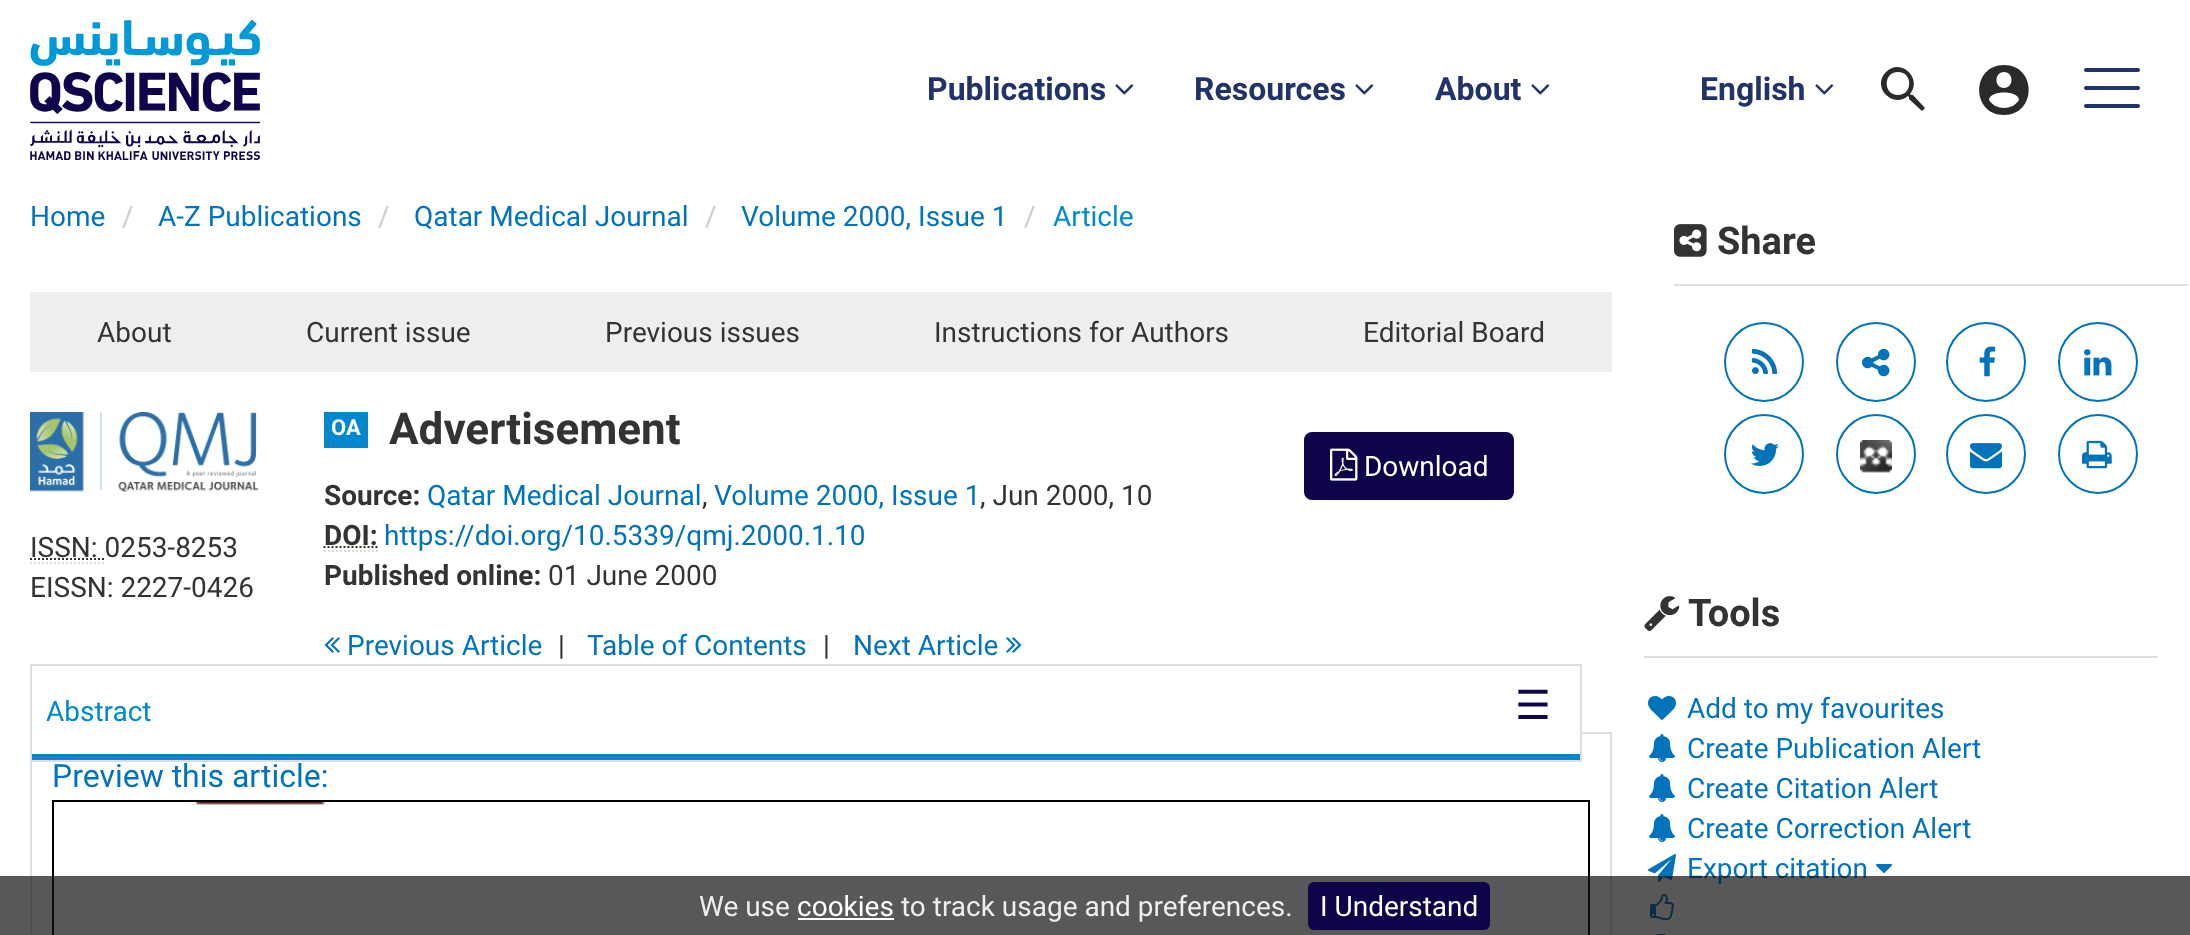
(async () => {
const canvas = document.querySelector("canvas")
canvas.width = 2190
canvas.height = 935
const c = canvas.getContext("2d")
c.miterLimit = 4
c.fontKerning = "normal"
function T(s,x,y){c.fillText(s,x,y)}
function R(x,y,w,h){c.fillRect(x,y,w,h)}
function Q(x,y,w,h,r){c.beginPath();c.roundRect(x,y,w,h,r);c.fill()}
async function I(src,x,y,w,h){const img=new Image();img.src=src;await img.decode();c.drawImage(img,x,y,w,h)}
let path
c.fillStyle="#fff"
R(0,0,2190,935)
await I("1.png",30,20,230,140)
c.font="bold 32px Roboto"
c.fillStyle="#213368"
T("Publications",927,100)
await I("2.png",1115,84,19,11)
T("Resources",1194,100)
await I("2.png",1355,84,19,11)
T("About",1435,100)
await I("2.png",1531,84,19,11)
T("English",1700,100)
await I("2.png",1815,84,19,11)
c.fillStyle="#2a2a2a"
path = new Path2D("M1913 95h-2l-1-1c13-15-9-37-24-22c-15 15 7 37 22 24l1 1v2l13 12l3-3zm-15 0c-15 0-15-23 0-23c15 0 15 23 0 23z")
c.fill(path)
path = new Path2D("M2004 65c-33 0-33 50 0 50c33 0 33-50 0-50zm0 7c10 0 10 16 0 16c-10 0-10-16 0-16zm0 36c-6 0-12-3-15-8c0-10 30-10 30 0c-3 5-9 8-15 8z")
c.fill(path)
c.fillStyle="#213368"
Q(2084,68,56,4,2)
Q(2084,86,56,4,2)
Q(2084,104,56,4,2)
c.font="28px Roboto"
c.fillStyle="#0073bb"
T("Home",30,226)
c.fillStyle="#ccc"
T("/",122,226)
c.fillStyle="#0073bb"
T("A-Z Publications",158,226)
c.fillStyle="#ccc"
T("/",378,226)
c.fillStyle="#0073bb"
T("Qatar Medical Journal",414,226)
c.fillStyle="#ccc"
T("/",705,226)
c.fillStyle="#0073bb"
T("Volume 2000, Issue 1",741,226)
c.fillStyle="#ccc"
T("/",1024,226)
c.fillStyle="#0088ce"
T("Article",1053,226)
c.fillStyle="#eee"
R(30,292,1582,80)
c.fillStyle="#333"
T("About",97,342)
T("Current issue",306,342)
T("Previous issues",605,342)
T("Instructions for Authors",934,342)
T("Editorial Board",1363,342)
await I("3.png",30,412,228,80)
T("ISSN: 0253-8253",30,557)
path = new Path2D("M30 563h74")
c.strokeStyle="#d5dfec"
c.lineWidth=2
c.setLineDash([2,2])
c.stroke(path)
path = new Path2D("M30 559h74.5")
c.strokeStyle="#333"
c.stroke(path)
T("EISSN: 2227-0426",30,597)
c.fillStyle="#0088ce"
R(324,412,44,36)
c.font="bold 22px Roboto"
c.fillStyle="#fff"
T("OA",331,435)
c.font="bold 44px Roboto"
c.fillStyle="#333"
T("Advertisement",389,444)
c.font="bold 28px Roboto"
T("Source:",324,505)
c.font="28px Roboto"
c.fillStyle="#0073bb"
T("Qatar Medical Journal",427,505)
c.fillStyle="#333"
T(",",702,505)
c.fillStyle="#0073bb"
T("Volume 2000, Issue 1",714,505)
c.fillStyle="#333"
T(", Jun 2000, 10",980,505)
c.font="bold 28px Roboto"
T("DOI:",324,545)
path = new Path2D("M324 551h54")
c.strokeStyle="#d5dfec"
c.stroke(path)
path = new Path2D("M323.5 547h54")
c.strokeStyle="#333"
c.stroke(path)
c.font="28px Roboto"
c.fillStyle="#0073bb"
T("https://doi.org/10.5339/qmj.2000.1.10",384,545)
c.font="bold 28px Roboto"
c.fillStyle="#333"
T("Published online:",324,585)
c.font="28px Roboto"
T("01 June 2000",548,585)
c.fillStyle="#110349"
Q(1304,432,210,68,8)
await I("4.png",1330,448,28,33)
c.fillStyle="#fff"
T("Download",1364,476)
await I("5.png",324,637,16,16)
c.fillStyle="#0073bb"
T("Previous Article",347,655)
c.fillStyle="#333"
T("|",558,655)
c.fillStyle="#0073bb"
T("T",587,655)
T("able of Contents",602,655)
c.fillStyle="#333"
T("|",823,655)
c.fillStyle="#0073bb"
T("Next Article",853,655)
await I("6.png",1006,637,16,16)
c.strokeStyle="#ddd"
c.setLineDash([])
c.strokeRect(31,733,1580,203)
c.fillStyle="#fff"
R(32,732,1548,2)
c.strokeRect(31,665,1550,96)
c.fillStyle="#0088ce"
R(32,754,1548,6)
T("Abstract",46,721)
c.font="40px DejaVu Sans"
c.fillStyle="#11034c"
T("☰",1515,719)
c.font="32px Roboto"
c.fillStyle="#0073bb"
T("Preview this article:",52,787)
c.strokeStyle="#000"
c.strokeRect(53,801,1536,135)
await I("7.png",196,802,130,3)
c.fillStyle="#ddd"
R(1674,284,514,2)
await I("8.png",1674,224,33,33)
c.font="bold 38px Roboto"
c.fillStyle="#333"
T("Share",1717,254)
c.beginPath()
c.arc(1764,362,39,0,7)
c.strokeStyle="#0073bb"
c.stroke()
await I("9.png",1752,348,26,26)
c.beginPath()
c.arc(1876,362,39,0,7)
c.stroke()
await I("10.png",1862,348,28,29)
c.beginPath()
c.arc(1986,362,39,0,7)
c.stroke()
await I("11.png",1979,346,17,31)
c.beginPath()
c.arc(2098,362,39,0,7)
c.stroke()
await I("12.png",2084,349,28,27)
c.beginPath()
c.arc(1764,454,39,0,7)
c.stroke()
await I("13.png",1751,443,28,23)
c.beginPath()
c.arc(1876,454,39,0,7)
c.stroke()
await I("14.png",1860,440,32,33)
c.beginPath()
c.arc(1986,454,39,0,7)
c.stroke()
await I("15.png",1970,443,32,26)
c.beginPath()
c.arc(2098,454,39,0,7)
c.stroke()
await I("16.png",2082,440,30,29)
c.fillStyle="#ddd"
R(1644,656,514,2)
await I("17.png",1644,596,36,35)
c.fillStyle="#333"
T("Tools",1688,626)
await I("18.png",1648,696,28,24)
c.font="28px Roboto"
c.fillStyle="#0073bb"
T("Add to my favourites",1687,718)
await I("19.png",1649,734,26,28)
T("Create Publication Alert",1687,758)
await I("19.png",1649,774,26,28)
T("Create Citation Alert",1687,798)
await I("19.png",1649,814,26,28)
T("Create Correction Alert",1687,838)
await I("20.png",1648,854,28,28)
T("Export citation",1687,878)
await I("21.png",1876,864,16,9)
await I("22.png",1650,894,24,26)
await I("23.png",1655,934,11,1)
c.fillStyle="#111111b3"
R(0,876,2190,59)
c.fillStyle="#eee"
T("We use",699,916)
c.fillStyle="#fff"
T("cookies",797,916)
R(798,918,96,2)
c.fillStyle="#eee"
T("to track usage and preferences.",901,916)
c.fillStyle="#110349"
Q(1308,882,182,48,6)
c.fillStyle="#fff"
T("I Understand",1320,916)
})()
